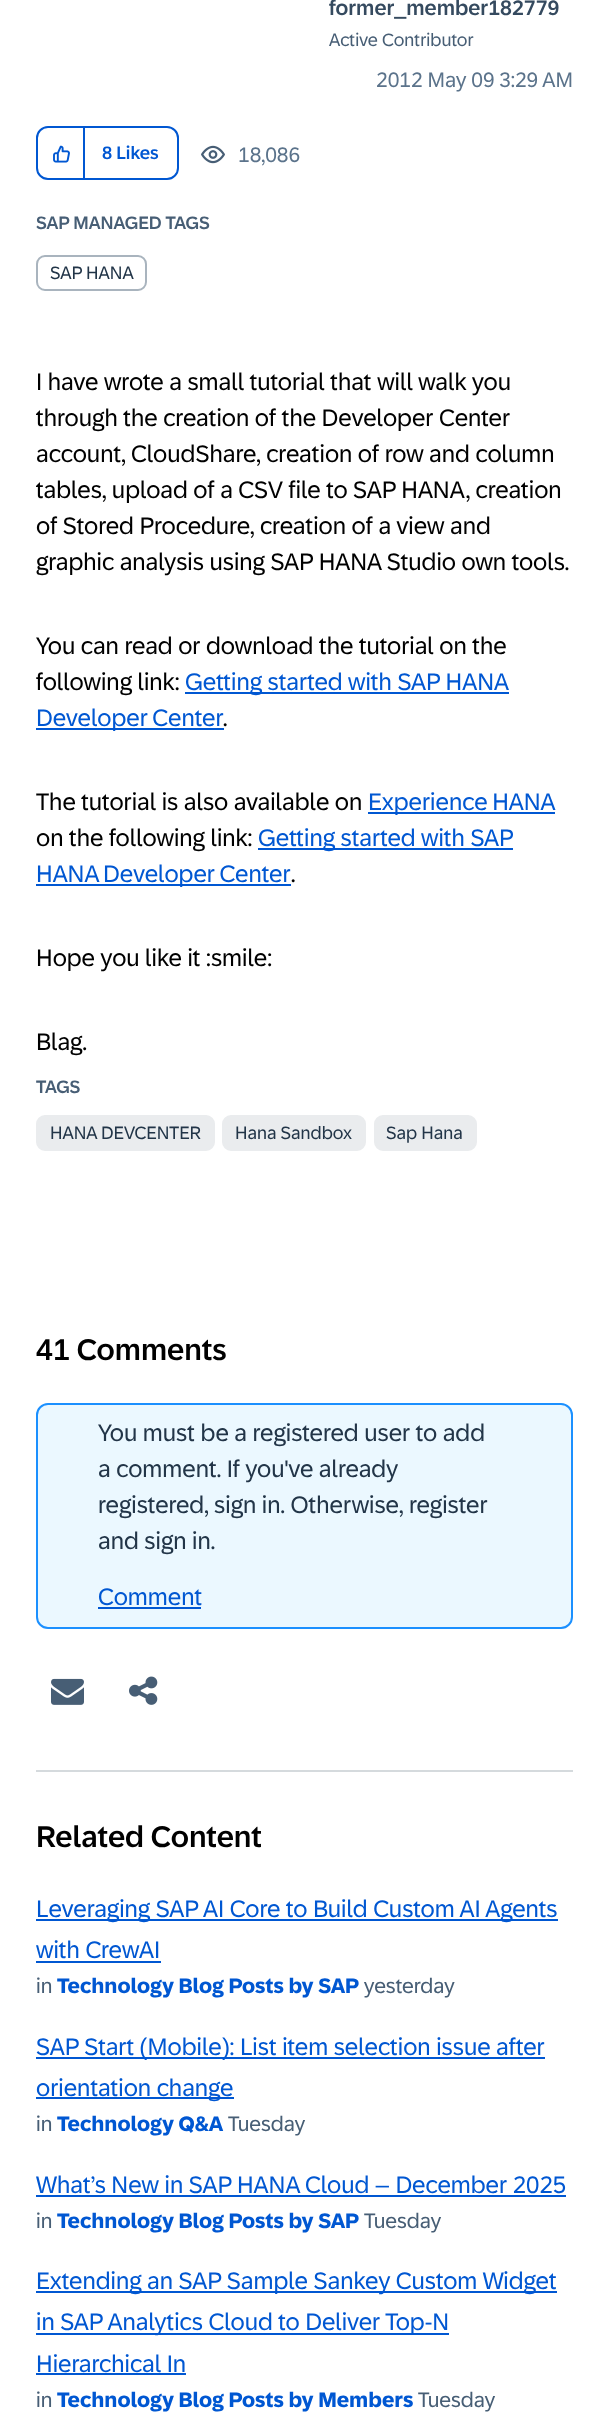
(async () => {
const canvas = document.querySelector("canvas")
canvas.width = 608
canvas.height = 2426
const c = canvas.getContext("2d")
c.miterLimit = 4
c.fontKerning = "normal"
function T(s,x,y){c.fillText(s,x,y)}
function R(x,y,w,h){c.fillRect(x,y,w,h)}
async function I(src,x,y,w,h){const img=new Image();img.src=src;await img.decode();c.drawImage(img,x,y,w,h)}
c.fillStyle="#fff"
R(0,0,608,2426)
c.font="500 21px '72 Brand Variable'"
c.fillStyle="#354a5f"
T("former_member182779",329,15)
c.font="18px '72 Brand Variable'"
c.fillStyle="#475e75"
T("Active Contributor",329,46)
c.font="21px '72 Brand Variable'"
c.fillStyle="#5b738b"
T("2012 May 09",376,87)
T("3:29 AM",499,87)
c.beginPath()
c.roundRect(37,127,141,52,11)
c.strokeStyle="#0057d2"
c.lineWidth=2
c.stroke()
c.fillStyle="#0057d2"
R(83,128,2,52)
await I("1.png",53,145,17,18)
c.font="500 18px '72 Brand Variable'"
T("8 Likes",102,159)
await I("2.png",201,145,24,19)
c.font="21px '72 Brand Variable'"
c.fillStyle="#5b738b"
T("18,086",238,162)
c.font="500 18px '72 Brand Variable'"
c.fillStyle="#475e75"
T("SAP MANAGED TAGS",36,229)
c.beginPath()
c.roundRect(37,256,109,34,8)
c.strokeStyle="#a9b4be"
c.stroke()
c.font="18px '72 Brand Variable'"
c.fillStyle="#223548"
T("SAP HANA",50,279)
c.font="24px '72 Brand Variable'"
c.fillStyle="#000"
T("I have wrote a small tutorial that will walk you",36,390)
T("through the creation of the Developer Center",36,426)
T("account, CloudShare, creation of row and column",36,462)
T("tables, upload of a CSV file to SAP HANA, creation",36,498)
T("of Stored Procedure, creation of a view and",36,534)
T("graphic analysis using SAP HANA Studio own tools.",36,570)
T("You can read or download the tutorial on the",36,654)
T("following link:",36,690)
c.fillStyle="#0057d2"
R(185,692,324,2)
T("Getting started with SAP HANA",185,690)
R(36,728,188,2)
c.wordSpacing="-1px"
T("Developer Center",36,726)
c.wordSpacing="0px"
c.fillStyle="#000"
T(".",223,726)
T("The tutorial is also available on",36,810)
c.fillStyle="#0057d2"
R(368,812,187,2)
c.wordSpacing="-1px"
T("Experience HANA",368,810)
c.wordSpacing="0px"
c.fillStyle="#000"
T("on the following link:",36,846)
c.fillStyle="#0057d2"
R(258,848,255,2)
T("Getting started with SAP",258,846)
R(36,884,255,2)
c.wordSpacing="-1px"
T("HANA Developer Center",36,882)
c.wordSpacing="0px"
c.fillStyle="#000"
T(".",291,882)
T("Hope you like it :smile:",36,966)
T("Blag.",36,1050)
c.font="500 18px '72 Brand Variable'"
c.fillStyle="#475e75"
T("TAGS",36,1093)
c.fillStyle="#eaecee"
c.beginPath()
c.roundRect(37,1116,177,34,8)
c.fill()
c.strokeStyle="#eaecee"
c.stroke()
c.font="18px '72 Brand Variable'"
c.fillStyle="#223548"
T("HANA DEVCENTER",50,1139)
c.fillStyle="#eaecee"
c.beginPath()
c.roundRect(223,1116,142,34,8)
c.fill()
c.stroke()
c.fillStyle="#223548"
T("Hana Sandbox",235,1139)
c.fillStyle="#eaecee"
c.beginPath()
c.roundRect(375,1116,101,34,8)
c.fill()
c.stroke()
c.fillStyle="#223548"
T("Sap Hana",386,1139)
c.font="500 30px '72 Brand Variable'"
c.fillStyle="#000"
T("41 Comments",36,1360)
c.fillStyle="#ebf8ff"
c.beginPath()
c.roundRect(37,1404,535,224,11)
c.fill()
c.strokeStyle="#1b90ff"
c.stroke()
c.font="24px '72 Brand Variable'"
c.fillStyle="#223548"
T("You must be a registered user to add",98,1441)
T("a comment. If you've already",98,1477)
T("registered, sign in. Otherwise, register",98,1513)
T("and sign in.",98,1549)
c.fillStyle="#0057d2"
T("Comment",98,1605)
R(98,1607,103,2)
await I("3.png",51,1678,33,27)
await I("4.png",129,1676,29,29)
c.fillStyle="#d5dadd"
R(36,1770,537,2)
c.font="500 30px '72 Brand Variable'"
c.fillStyle="#000"
T("Related Content",36,1847)
c.fillStyle="#0057d2"
R(36,1919,522,2)
c.font="24px '72 Brand Variable'"
T("Leveraging SAP AI Core to Build Custom AI Agents",36,1917)
T("with CrewAI",36,1958)
R(36,1961,125,2)
c.font="21px '72 Brand Variable'"
c.fillStyle="#475e75"
T("in",36,1993)
c.font="bold 21px '72 Brand Variable'"
c.fillStyle="#0057d2"
T("Technology Blog Posts by SAP",57,1993)
c.font="21px '72 Brand Variable'"
c.fillStyle="#475e75"
T("yesterday",364,1993)
c.fillStyle="#0057d2"
R(36,2057,509,2)
c.font="24px '72 Brand Variable'"
T("SAP Start (Mobile): List item selection issue after",36,2055)
R(36,2097,198,2)
T("orientation change",36,2096)
c.font="21px '72 Brand Variable'"
c.fillStyle="#475e75"
T("in",36,2131)
c.font="bold 21px '72 Brand Variable'"
c.fillStyle="#0057d2"
T("Technology Q&A",57,2131)
c.font="21px '72 Brand Variable'"
c.fillStyle="#475e75"
T("Tuesday",228,2131)
c.font="24px '72 Brand Variable'"
c.fillStyle="#0057d2"
T("What’s New in SAP HANA Cloud – December 2025",36,2193)
R(36,2195,530,2)
c.font="21px '72 Brand Variable'"
c.fillStyle="#475e75"
T("in",36,2228)
c.font="bold 21px '72 Brand Variable'"
c.fillStyle="#0057d2"
T("Technology Blog Posts by SAP",57,2228)
c.font="21px '72 Brand Variable'"
c.fillStyle="#475e75"
T("Tuesday",364,2228)
c.fillStyle="#0057d2"
R(36,2291,521,2)
c.font="24px '72 Brand Variable'"
T("Extending an SAP Sample Sankey Custom Widget",36,2289)
R(36,2333,413,2)
T("in SAP Analytics Cloud to Deliver Top-N",36,2330)
T("Hierarchical In",36,2372)
R(36,2373,150,2)
c.font="21px '72 Brand Variable'"
c.fillStyle="#475e75"
T("in",36,2407)
c.font="bold 21px '72 Brand Variable'"
c.fillStyle="#0057d2"
T("Technology Blog Posts by Members",57,2407)
c.font="21px '72 Brand Variable'"
c.fillStyle="#475e75"
T("Tuesday",418,2407)
})()
